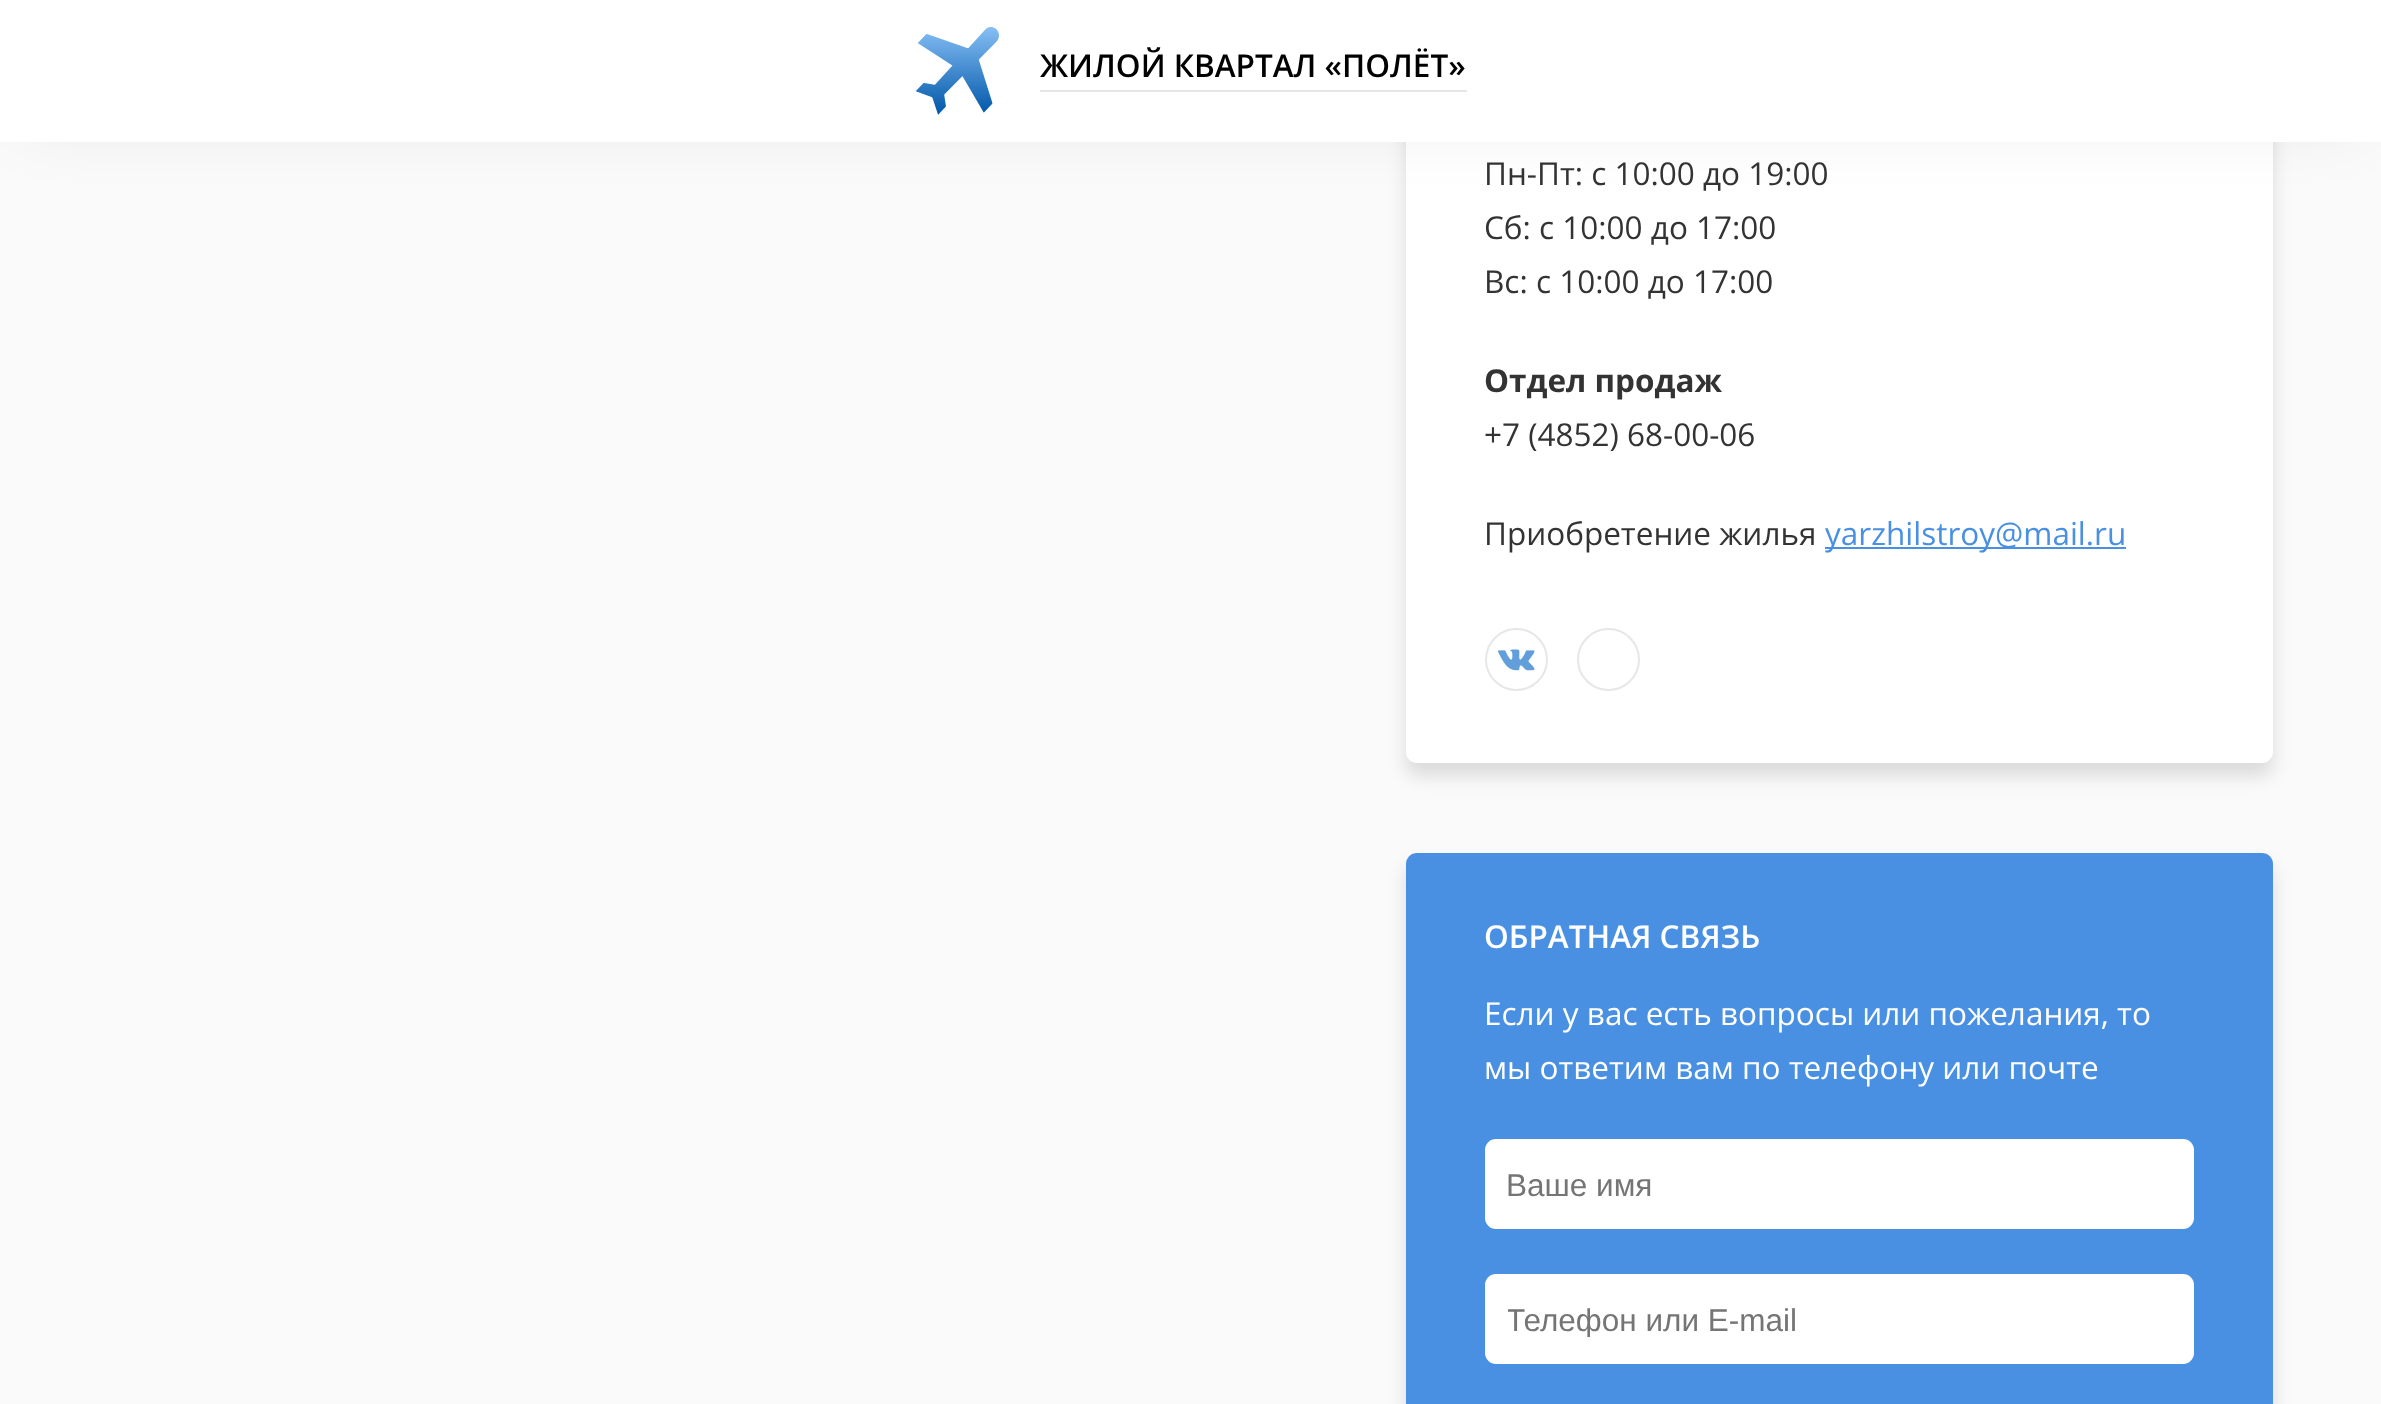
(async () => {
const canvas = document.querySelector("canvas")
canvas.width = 2381
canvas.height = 1404
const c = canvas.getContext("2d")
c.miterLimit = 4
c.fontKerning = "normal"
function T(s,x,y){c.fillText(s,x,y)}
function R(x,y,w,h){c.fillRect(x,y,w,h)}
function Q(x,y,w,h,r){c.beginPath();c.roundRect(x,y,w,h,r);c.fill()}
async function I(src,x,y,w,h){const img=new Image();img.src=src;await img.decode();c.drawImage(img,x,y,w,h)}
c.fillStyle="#fafafa"
R(0,0,2381,1404)
c.fillStyle="#0000001f"
c.filter="blur(9px)"
c.beginPath()
c.roundRect(1406,-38,867,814,11)
c.fill()
c.filter="none"
c.fillStyle="#fff"
Q(1406,-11,867,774,11)
c.fillStyle="#0000001a"
c.filter="blur(34px)"
c.beginPath()
c.rect(23,23,2337,96)
c.fill()
c.filter="none"
c.fillStyle="#fff"
R(0,0,2381,142)
await I("1.png",916,27,83,88)
c.fillStyle="#e6e6e6"
R(1040,90,427,2)
c.font="600 31.5px Open Sans"
c.fillStyle="#000"
T("ЖИЛОЙ КВАРТАЛ «ПОЛЁТ»",1040,77)
c.font="31.5px Open Sans"
c.fillStyle="#333"
T("Пн-Пт: с 10:00 до 19:00",1484,185)
T("Сб: с 10:00 до 17:00",1484,239)
T("Вс: с 10:00 до 17:00",1484,293)
c.font="bold 31.5px Open Sans"
T("Отдел продаж",1484,392)
c.font="31.5px Open Sans"
T("+7 (4852) 68-00-06",1484,446)
T("Приобретение жилья",1484,545)
c.fillStyle="#4990e2"
R(1825,547,301,2)
T("yarzhilstroy@mail.ru",1825,545)
await I("2.png",1498,649,37,22)
c.beginPath()
c.arc(1516.5,659.5,30.5,0,7)
c.strokeStyle="#e7e7e7"
c.lineWidth=2
c.stroke()
c.beginPath()
c.arc(1608.5,659.5,30.5,0,7)
c.stroke()
c.fillStyle="#0000001f"
c.filter="blur(9px)"
c.beginPath()
c.roundRect(1406,866,867,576,11)
c.fill()
c.filter="none"
c.fillStyle="#4a90e2"
Q(1406,853,867,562,11)
c.font="600 31.5px Open Sans"
c.fillStyle="#fff"
T("ОБРАТНАЯ СВЯЗЬ",1484,948)
c.font="31.5px Open Sans"
T("Если у вас есть вопросы или пожелания, то",1484,1025)
T("мы ответим вам по телефону или почте",1484,1079)
Q(1485,1139,709,90,11)
c.font="31.5px Liberation Sans"
c.fillStyle="#757575"
T("Ваше имя",1506,1196)
c.fillStyle="#fff"
Q(1485,1274,709,90,11)
c.save()
c.beginPath()
c.rect(1508,1301,663,36)
c.clip()
c.fillStyle="#757575"
T("Телефон или E-mail",1506,1331)
c.restore()
})()
